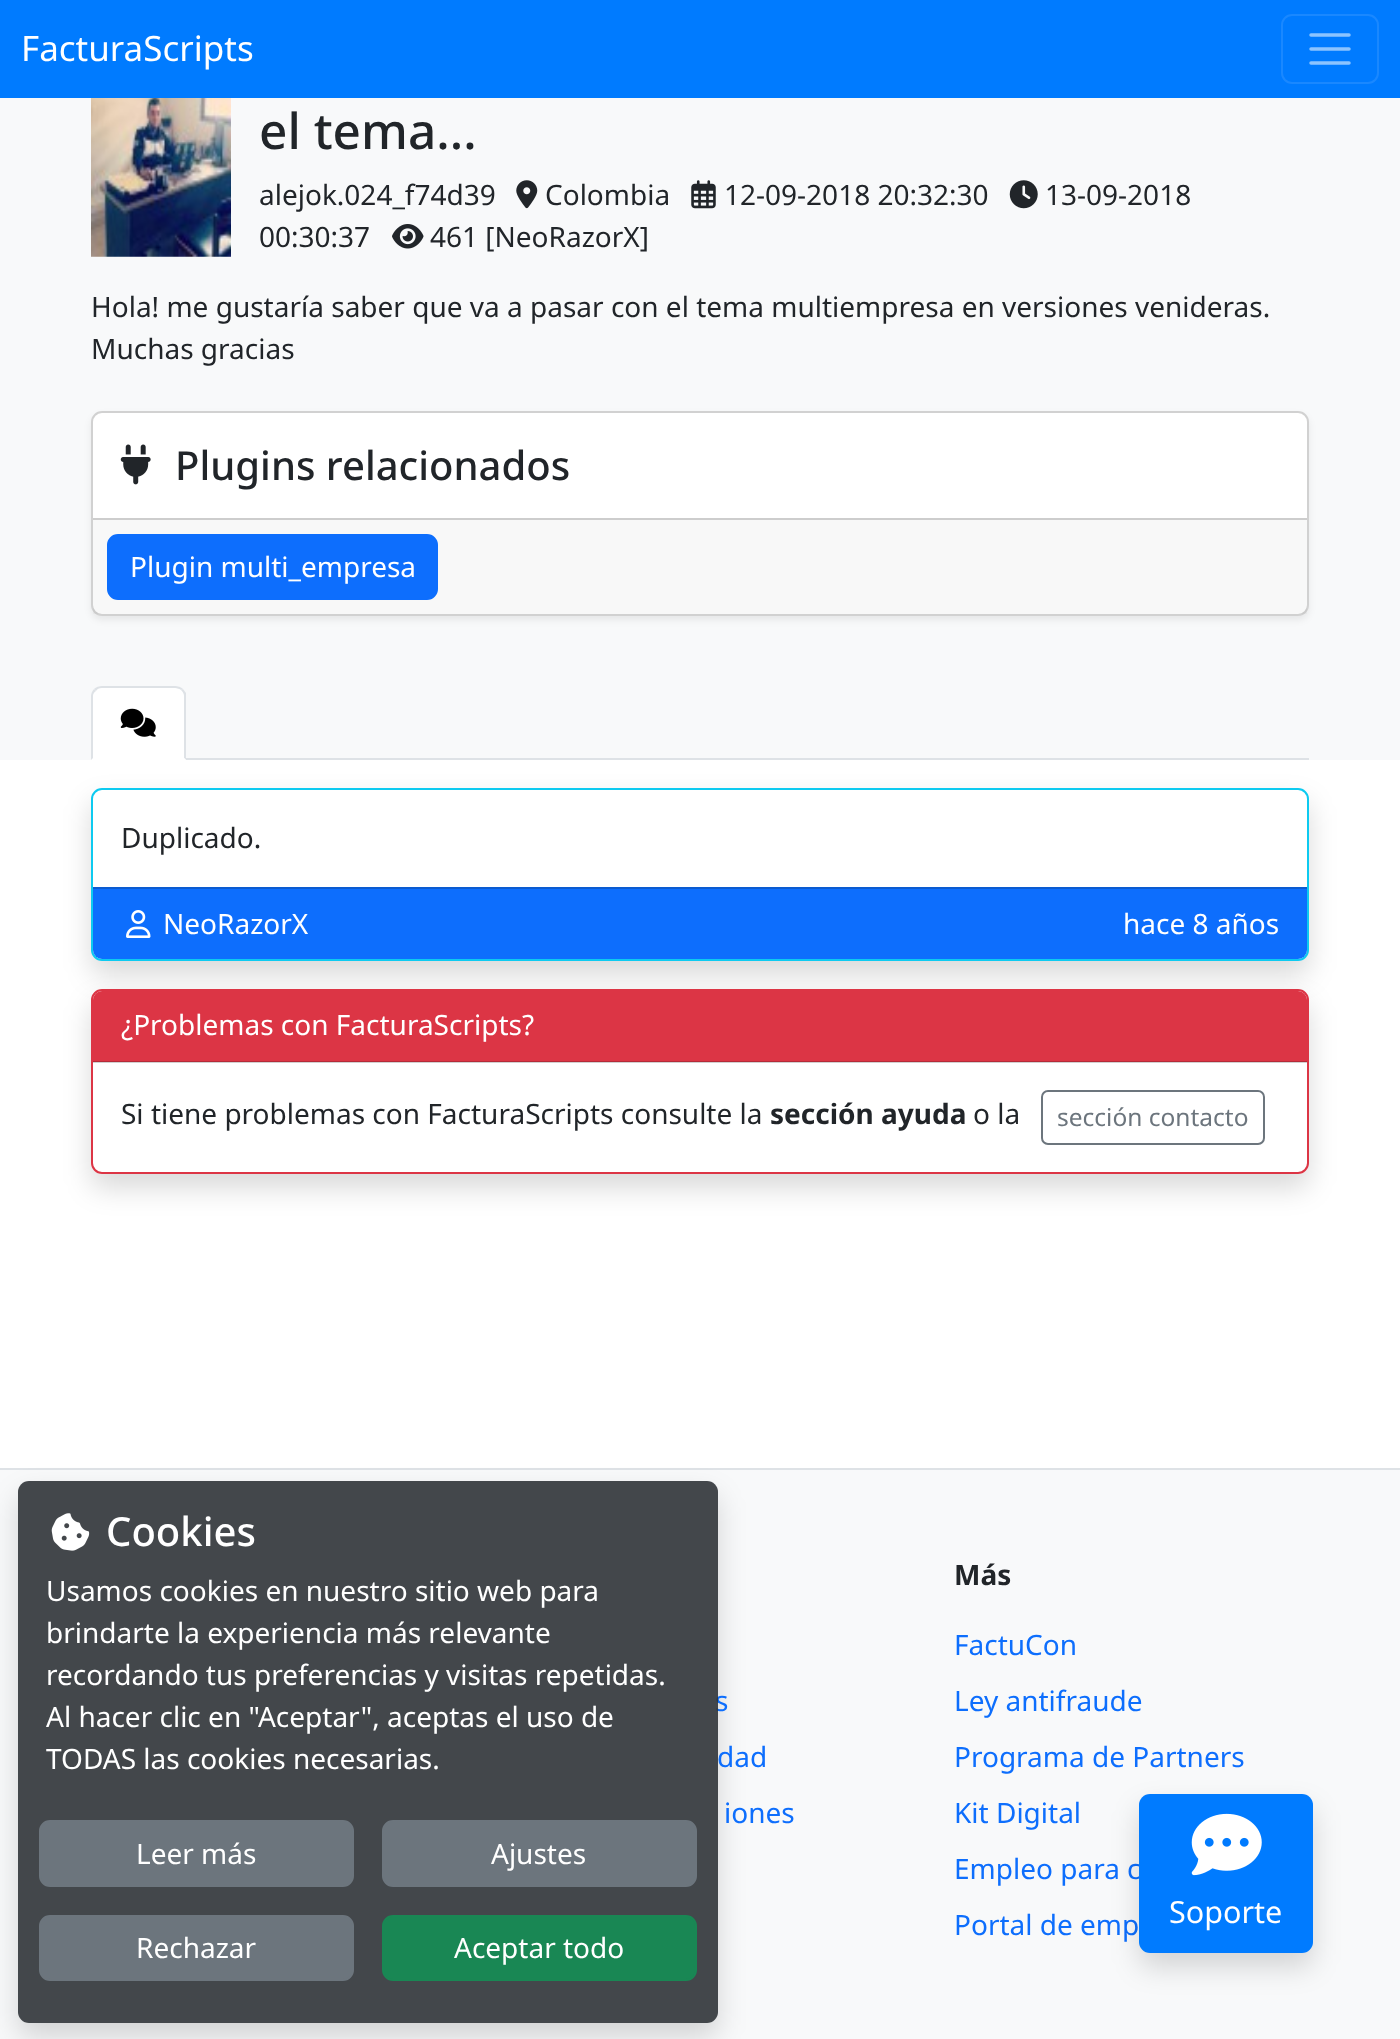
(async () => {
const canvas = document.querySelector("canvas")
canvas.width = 1400
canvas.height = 2039
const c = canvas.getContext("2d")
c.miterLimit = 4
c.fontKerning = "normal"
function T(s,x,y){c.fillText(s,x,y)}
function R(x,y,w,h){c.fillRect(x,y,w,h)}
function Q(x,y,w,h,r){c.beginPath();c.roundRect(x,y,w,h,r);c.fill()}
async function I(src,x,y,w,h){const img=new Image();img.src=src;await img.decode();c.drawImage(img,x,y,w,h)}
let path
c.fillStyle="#fff"
R(0,0,1400,2039)
c.fillStyle="#007bff"
R(0,0,1400,98)
c.font="35px Noto Sans"
c.fillStyle="#fff"
T("FacturaScripts",21,61)
c.beginPath()
c.roundRect(1282,15,96,68,10)
c.strokeStyle="#1a88ff"
c.lineWidth=2
c.stroke()
path = new Path2D("M1311 35h38m-38 14h38m-38 14h38")
c.strokeStyle="#8cc4ff"
c.lineWidth=3.5
c.lineCap="round"
c.stroke(path)
c.fillStyle="#f8f9fa"
R(0,98,1400,662)
await I("1.png",91,98,140,159)
c.font="500 49.5px Noto Sans"
c.fillStyle="#212529"
T("el tema...",259,149)
c.font="28px Noto Sans"
T("alejok.024_f74d39",259,205)
await I("2.png",516,180,22,29)
T("Colombia",545,205)
await I("3.png",691,180,25,29)
T("12-09-2018 20:32:30",724,205)
await I("4.png",1009,180,29,29)
T("13-09-2018",1045,205)
T("00:30:37",259,247)
await I("5.png",392,224,32,25)
T("461 [NeoRazorX]",430,247)
T("Hola! me gustaría saber que va a pasar con el tema multiempresa en versiones venideras.",91,317)
T("Muchas gracias",91,359)
c.fillStyle="#00000012"
c.filter="blur(3.5px)"
c.beginPath()
c.roundRect(91,415,1218,205,11)
c.fill()
c.filter="none"
c.fillStyle="#fff"
Q(91,411,1218,205,11)
c.beginPath()
c.roundRect(92,412,1216,203,10)
c.strokeStyle="#0000002e"
c.lineWidth=2
c.stroke()
await I("6.png",120,444,31,41)
c.font="500 40px Noto Sans"
c.fillStyle="#212529"
T("Plugins relacionados",175,480)
c.fillStyle="#21252908"
R(93,520,1214,94)
c.fillStyle="#cdcdcd"
R(93,518,1214,2)
c.fillStyle="#0d6efd"
c.beginPath()
c.roundRect(108,535,329,64,10)
c.fill()
c.strokeStyle="#0d6efd"
c.stroke()
c.font="28px Noto Sans"
c.fillStyle="#fff"
T("Plugin multi_empresa",130,577)
c.fillStyle="#dee2e6"
R(186,758,1123,2)
c.fillStyle="#fff"
c.beginPath()
c.roundRect(91,686,95,74,[11,11,0,0])
c.fill()
c.fillStyle="#dee2e6"
path = new Path2D("M102 686c-3 0-6 1-8 3l2 2c1-2 3-3 6-3h73c2 0 5 1 6 2l2-1c-2-2-5-3-8-3z")
c.fill(path)
path = new Path2D("M183 689l3 4v67l-2-2v-62c0-2-1-4-3-6z")
c.fill(path)
c.fillStyle="#fff"
path = new Path2D("M186 760l-2-2h-91l-2 2z")
c.fill(path)
c.fillStyle="#dee2e6"
path = new Path2D("M91 760l2-2v-62c0-2 1-4 3-5l-2-2c-2 2-3 5-3 7z")
c.fill(path)
await I("7.png",120,708,36,29)
c.fillStyle="#00000026"
c.filter="blur(14px)"
c.beginPath()
c.roundRect(91,802,1218,173,11)
c.fill()
c.filter="none"
c.fillStyle="#fff"
c.beginPath()
c.roundRect(92,789,1216,171,10)
c.fill()
c.strokeStyle="#0dcaf0"
c.stroke()
c.fillStyle="#212529"
T("Duplicado.",121,848)
c.fillStyle="#0d6efd"
c.beginPath()
c.roundRect(93,887,1214,72,[0,0,9,9])
c.fill()
c.fillStyle="#0b5bd0"
R(93,887,1214,2)
await I("8.png",126,910,25,28)
c.fillStyle="#fff"
T("NeoRazorX",163,934)
T("hace 8 años",1123,934)
c.fillStyle="#00000026"
c.filter="blur(14px)"
c.beginPath()
c.roundRect(91,1003,1218,185,11)
c.fill()
c.filter="none"
c.fillStyle="#fff"
Q(91,989,1218,185,11)
c.fillStyle="#d1d1d1"
R(93,1062,1214,1)
c.beginPath()
c.roundRect(92,990,1216,183,10)
c.strokeStyle="#dc3545"
c.stroke()
c.fillStyle="#dc3545"
c.beginPath()
c.roundRect(93,991,1214,71,[9,9,0,0])
c.fill()
c.fillStyle="#b42b39"
R(93,1061,1214,1)
c.fillStyle="#fff"
T("¿Problemas con FacturaScripts?",121,1035)
c.fillStyle="#212529"
T("Si tiene problemas con FacturaScripts consulte la",121,1124)
c.font="bold 28px Noto Sans"
T("sección ayuda",770,1124)
c.font="28px Noto Sans"
T("o la",973,1124)
c.beginPath()
c.roundRect(1042,1091,222,53,6)
c.strokeStyle="#6c757d"
c.stroke()
c.font="24.5px Noto Sans"
c.fillStyle="#6c757d"
T("sección contacto",1057,1126)
c.fillStyle="#f8f9fa"
R(0,1470,1400,569)
c.fillStyle="#dee2e6"
R(0,1468,1400,2)
c.save()
path = new Path2D("M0 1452h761v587h-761zm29 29h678c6 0 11 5 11 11v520c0 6-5 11-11 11h-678c-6 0-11-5-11-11v-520c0-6 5-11 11-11z")
c.clip(path,"evenodd")
c.fillStyle="#00000026"
c.filter="blur(14px)"
c.beginPath()
c.roundRect(18,1495,700,542,11)
c.fill()
c.filter="none"
c.restore()
c.font="28px Noto Sans"
c.fillStyle="#0d6efd"
T("s",715,1711)
c.fillStyle="#2f3337e6"
Q(18,1481,700,542,11)
await I("9.png",51,1513,39,38)
c.font="500 40px Noto Sans"
c.fillStyle="#fff"
T("Cookies",106,1546)
c.font="28px Noto Sans"
T("Usamos cookies en nuestro sitio web para",46,1601)
T("brindarte la experiencia más relevante",46,1643)
T("recordando tus preferencias y visitas repetidas.",46,1685)
T("Al hacer clic en \"Aceptar\", aceptas el uso de",46,1727)
T("TODAS las cookies necesarias.",46,1769)
c.fillStyle="#6c757d"
c.beginPath()
c.roundRect(40,1821,313,65,10)
c.fill()
c.stroke()
c.fillStyle="#fff"
T("Leer más",136,1864)
c.fillStyle="#6c757d"
c.beginPath()
c.roundRect(383,1821,313,65,10)
c.fill()
c.stroke()
c.fillStyle="#fff"
T("Ajustes",491,1864)
c.fillStyle="#6c757d"
c.beginPath()
c.roundRect(40,1916,313,64,10)
c.fill()
c.stroke()
c.fillStyle="#fff"
T("Rechazar",136,1958)
c.fillStyle="#198754"
c.beginPath()
c.roundRect(383,1916,313,64,10)
c.fill()
c.strokeStyle="#198754"
c.stroke()
c.fillStyle="#fff"
T("Aceptar todo",454,1958)
c.fillStyle="#0d6efd"
T("dad",717,1767)
T("iones",724,1823)
c.font="bold 28px Noto Sans"
c.fillStyle="#212529"
T("Más",954,1585)
c.font="28px Noto Sans"
c.fillStyle="#0d6efd"
T("FactuCon",954,1655)
T("Ley antifraude",954,1711)
T("Programa de Partners",954,1767)
T("Kit Digital",954,1823)
T("Empleo para c",954,1879)
T("Portal de emp",954,1935)
c.fillStyle="#00000026"
c.filter="blur(14px)"
c.beginPath()
c.roundRect(1139,1808,174,159,11)
c.fill()
c.filter="none"
c.fillStyle="#007bff"
Q(1139,1794,174,159,11)
await I("10.png",1191,1813,71,63)
c.font="30.5px Noto Sans"
c.fillStyle="#fff"
T("Soporte",1169,1923)
})()
